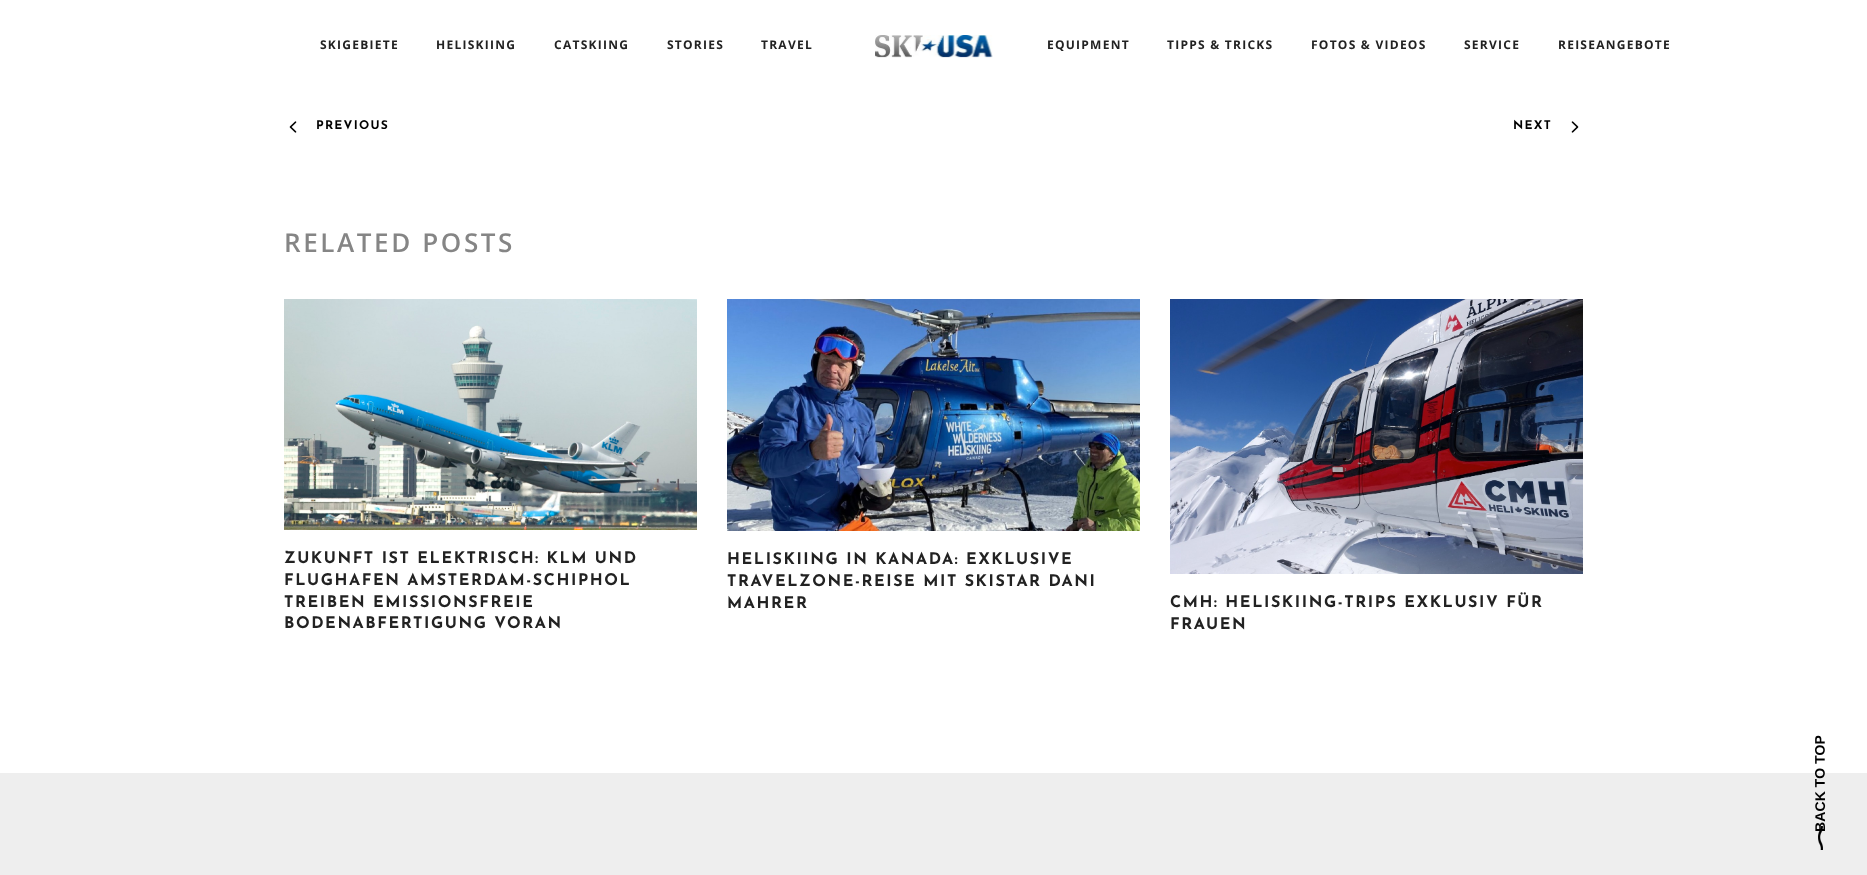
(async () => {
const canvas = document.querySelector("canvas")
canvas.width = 1867
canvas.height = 875
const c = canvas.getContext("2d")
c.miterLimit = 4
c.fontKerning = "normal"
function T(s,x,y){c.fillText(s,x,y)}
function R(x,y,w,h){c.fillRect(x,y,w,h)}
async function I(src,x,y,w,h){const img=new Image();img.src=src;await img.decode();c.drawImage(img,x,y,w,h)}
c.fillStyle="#fff"
R(0,0,1867,875)
c.letterSpacing="1.25px"
c.font="bold 12px Open Sans"
c.fillStyle="#222"
T("SKIGEBIETE",320,49)
T("HELISKIING",436,49)
T("CATSKIING",554,49)
T("STORIES",667,49)
T("TRAVEL",761,49)
await I("1.png",875,35,118,23)
T("EQUIPMENT",1047,49)
T("TIPPS & TRICKS",1167,49)
T("FOTOS & VIDEOS",1311,49)
T("SERVICE",1464,49)
T("REISEANGEBOTE",1558,49)
await I("2.png",289,121,8,12)
c.font="bold 12px Josefin Sans"
c.fillStyle="#000"
T("PREVIOUS",316,129)
T("NEXT",1513,129)
await I("3.png",1571,121,8,12)
c.letterSpacing="2.6px"
c.font="600 26px Open Sans"
c.fillStyle="#858585"
T("RELATED POSTS",284,252)
await I("4.png",284,299,413,231)
c.letterSpacing="1.6px"
c.font="bold 16px Josefin Sans"
c.fillStyle="#222"
T("ZUKUNFT IST ELEKTRISCH: KLM UND",284,563)
T("FLUGHAFEN AMSTERDAM-SCHIPHOL",284,585)
T("TREIBEN EMISSIONSFREIE",284,607)
T("BODENABFERTIGUNG VORAN",284,628)
await I("5.png",727,299,413,232)
T("HELISKIING IN KANADA: EXKLUSIVE",727,564)
T("TRAVELZONE-REISE MIT SKISTAR DANI",727,586)
T("MAHRER",727,608)
await I("6.png",1170,299,413,275)
T("CMH: HELISKIING-TRIPS EXKLUSIV FÜR",1170,607)
T("FRAUEN",1170,629)
c.fillStyle="#eee"
R(0,773,1867,102)
c.letterSpacing="0.1px"
c.font="bold 14px Liberation Sans"
c.fillStyle="#000"
c.save()
c.translate(1825,832)
c.rotate(-90.2 * Math.PI / 180)
c.fillText("BACK TO TOP",0,0)
c.restore()
await I("7.png",1818,826,5,24)
})()
